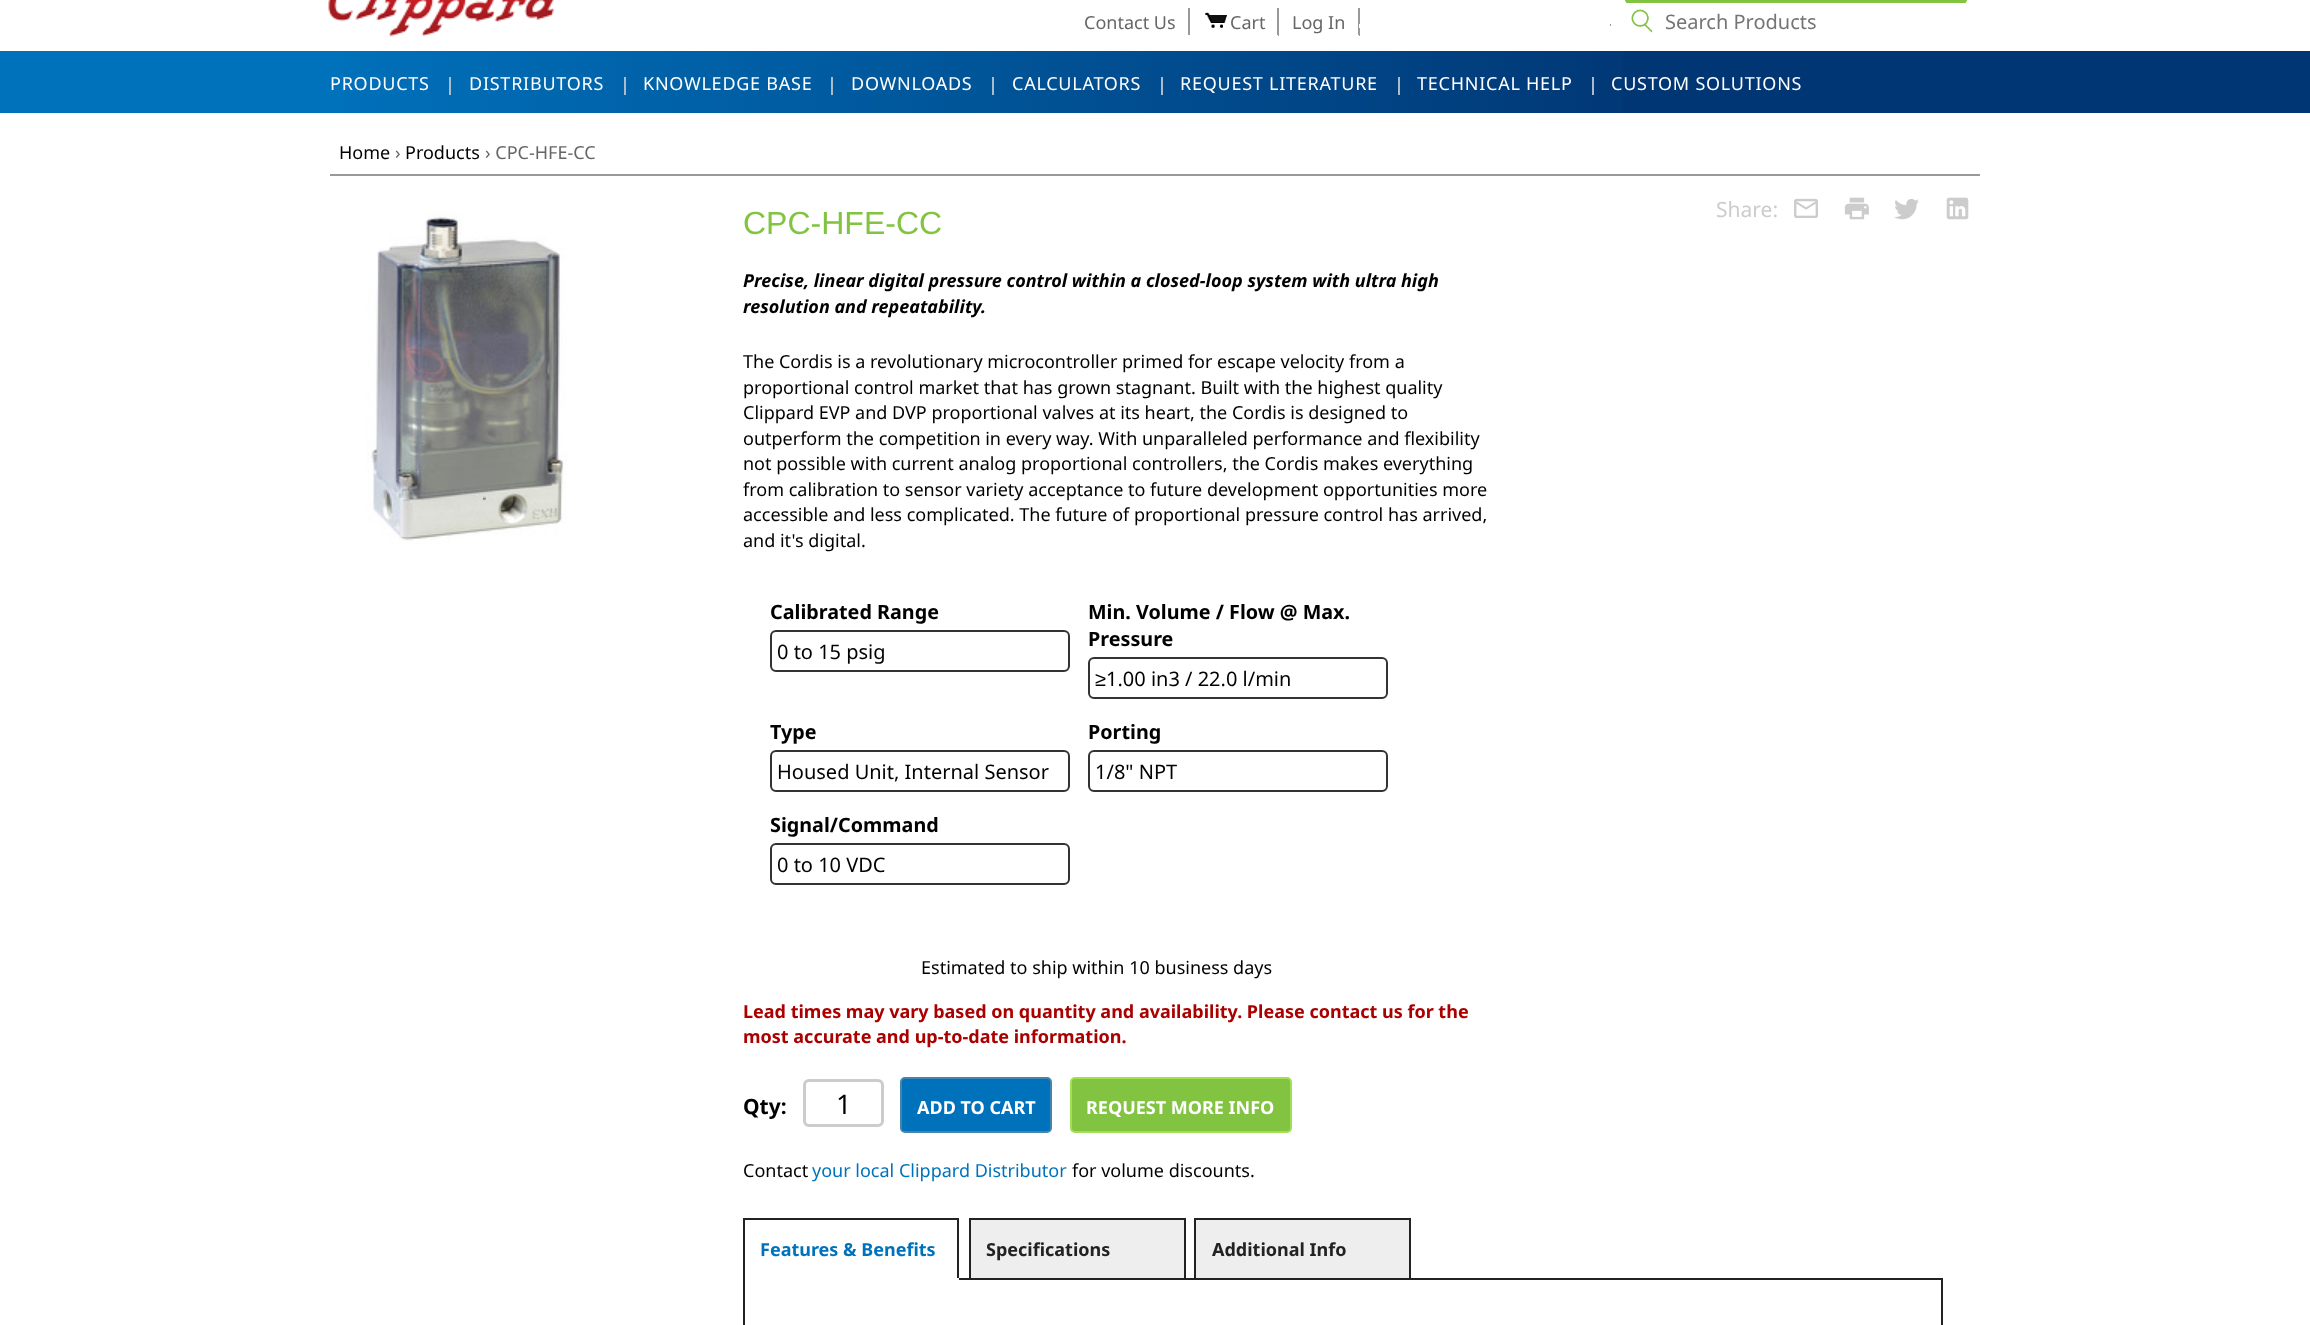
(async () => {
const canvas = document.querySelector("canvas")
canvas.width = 2310
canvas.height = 1325
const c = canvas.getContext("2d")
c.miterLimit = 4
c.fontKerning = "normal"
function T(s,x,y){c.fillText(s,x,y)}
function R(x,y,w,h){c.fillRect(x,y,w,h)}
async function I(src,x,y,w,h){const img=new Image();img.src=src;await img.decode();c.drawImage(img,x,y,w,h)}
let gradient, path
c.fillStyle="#fff"
R(0,0,2310,1325)
await I("1.png",328,0,226,37)
c.fillStyle="#999"
R(1188,8,2,28)
c.fillStyle="#fff"
R(1188,35,2,1)
c.font="18px Noto Sans"
c.fillStyle="#666"
T("Contact Us",1084,29)
c.fillStyle="#999"
R(1277,8,2,28)
c.fillStyle="#fff"
R(1277,35,1,1)
await I("2.png",1205,12,22,16)
c.fillStyle="#666"
T("Cart",1230,29)
c.fillStyle="#999"
R(1358,8,2,28)
c.fillStyle="#fff"
R(1358,35,1,1)
c.fillStyle="#666"
T("Log In",1292,29)
c.fillStyle="#fff"
R(1359,24,1,2)
c.fillStyle="#999"
R(1610,24,1,3)
c.fillStyle="#fff"
R(1359,26,252,2)
await I("3.png",1631,9,22,24)
c.fillStyle="#82c341"
path = new Path2D("M1624-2h344l-2 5h-340z")
c.fill(path)
c.fillStyle="#fff"
path = new Path2D("M1968-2v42l-2-1v-36z")
c.fill(path)
path = new Path2D("M1624 40v-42l2 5v36z")
c.fill(path)
c.font="20px Noto Sans"
c.fillStyle="#757575"
T("Search Products",1665,29)
gradient = c.createLinearGradient(0,82,2310,82)
gradient.addColorStop(.5,"#0072bc")
gradient.addColorStop(.51,"#013674")
c.fillStyle = gradient
R(0,51,2310,62)
gradient = c.createLinearGradient(296,82,2015,82)
gradient.addColorStop(0,"#0072bc")
gradient.addColorStop(.8,"#013674")
c.fillStyle = gradient
R(344,51,1279,62)
c.letterSpacing="0.75px"
c.font="18px Noto Sans"
c.fillStyle="#fff"
T("PRODUCTS",330,90)
c.fillStyle="#abc"
R(449,77,2,18)
c.fillStyle="#fff"
T("DISTRIBUTORS",469,90)
c.fillStyle="#abc"
R(624,77,2,18)
c.fillStyle="#fff"
T("KNOWLEDGE BASE",643,90)
c.fillStyle="#abc"
R(831,77,2,18)
c.fillStyle="#fff"
T("DOWNLOADS",851,90)
c.fillStyle="#abc"
R(992,77,2,18)
c.fillStyle="#fff"
T("CALCULATORS",1012,90)
c.fillStyle="#abc"
R(1161,77,2,18)
c.fillStyle="#fff"
T("REQUEST LITERATURE",1180,90)
c.fillStyle="#abc"
R(1398,77,2,18)
c.fillStyle="#fff"
T("TECHNICAL HELP",1417,90)
c.fillStyle="#abc"
R(1592,77,2,18)
c.fillStyle="#fff"
T("CUSTOM SOLUTIONS",1611,90)
c.fillStyle="#999"
R(330,174,1650,2)
c.letterSpacing="0px"
c.fillStyle="#000"
T("Home",339,159)
c.fillStyle="#666"
T("›",395,159)
c.fillStyle="#000"
T("Products",405,159)
c.fillStyle="#666"
T("› CPC-HFE-CC",485,159)
c.font="21px Noto Sans"
c.fillStyle="#ccc"
T("Share:",1716,217)
await I("4.png",1794,198,24,20)
await I("5.png",1844,197,25,23)
await I("6.png",1894,199,25,21)
await I("7.png",1946,197,23,23)
await I("8.png",366,212,201,332)
c.font="32px Liberation Sans"
c.fillStyle="#82c341"
T("CPC-HFE-CC",743,234)
c.font="italic bold 18px Noto Sans"
c.fillStyle="#000"
T("Precise, linear digital pressure control within a closed-loop system with ultra high",743,287)
T("resolution and repeatability.",743,313)
c.font="18px Noto Sans"
T("The Cordis is a revolutionary microcontroller primed for escape velocity from a",743,368)
T("proportional control market that has grown stagnant. Built with the highest quality",743,394)
T("Clippard EVP and DVP proportional valves at its heart, the Cordis is designed to",743,419)
T("outperform the competition in every way. With unparalleled performance and flexibility",743,445)
T("not possible with current analog proportional controllers, the Cordis makes everything",743,470)
T("from calibration to sensor variety acceptance to future development opportunities more",743,496)
T("accessible and less complicated. The future of proportional pressure control has arrived,",743,521)
T("and it's digital.",743,547)
c.font="bold 19.75px Noto Sans"
T("Calibrated Range",770,619)
c.beginPath()
c.roundRect(771,631,298,40,5)
c.strokeStyle="#333"
c.lineWidth=2
c.stroke()
c.font="20px Noto Sans"
T("0 to 15 psig",777,659)
c.font="bold 19.75px Noto Sans"
T("Min. Volume / Flow @ Max.",1088,619)
T("Pressure",1088,646)
c.beginPath()
c.roundRect(1089,658,298,40,5)
c.stroke()
c.font="20px Liberation Sans"
T("≥",1095,686)
c.font="20px Noto Sans"
T("1.00 in3 / 22.0 l/min",1106,686)
c.font="bold 19.75px Noto Sans"
T("Type",770,739)
c.beginPath()
c.roundRect(771,751,298,40,5)
c.stroke()
c.font="20px Noto Sans"
T("Housed Unit, Internal Sensor",777,779)
c.font="bold 19.75px Noto Sans"
T("Porting",1088,739)
c.beginPath()
c.roundRect(1089,751,298,40,5)
c.stroke()
c.font="20px Noto Sans"
T("1/8\" NPT",1095,779)
c.font="bold 19.75px Noto Sans"
T("Signal/Command",770,832)
c.beginPath()
c.roundRect(771,844,298,40,5)
c.stroke()
c.font="20px Noto Sans"
T("0 to 10 VDC",777,872)
c.font="18px Noto Sans"
T("Estimated to ship within 10 business days",921,974)
c.font="bold 18px Noto Sans"
c.fillStyle="#a00"
T("Lead times may vary based on quantity and availability. Please contact us for the",743,1018)
T("most accurate and up-to-date information.",743,1043)
c.font="bold 21px Noto Sans"
c.fillStyle="#000"
T("Qty:",743,1114)
c.beginPath()
c.roundRect(804.5,1080.5,78,45,4.5)
c.strokeStyle="#ccc"
c.lineWidth=3
c.stroke()
c.font="27px Noto Sans"
T("1",836,1114)
c.fillStyle="#0072bc"
c.beginPath()
c.roundRect(901,1078,150,54,4)
c.fill()
c.strokeStyle="#4485ae"
c.lineWidth=2
c.stroke()
c.font="bold 18px Noto Sans"
c.fillStyle="#fff"
T("ADD TO CART",917,1114)
c.fillStyle="#82c341"
c.beginPath()
c.roundRect(1071,1078,220,54,4)
c.fill()
c.strokeStyle="#a0e055"
c.stroke()
c.fillStyle="#fff"
T("REQUEST MORE INFO",1086,1114)
c.font="18px Noto Sans"
c.fillStyle="#000"
T("Contact",743,1177)
c.fillStyle="#0072bc"
T("your local Clippard Distributor",812,1177)
c.fillStyle="#000"
T("for volume discounts.",1072,1177)
c.fillStyle="#222"
R(743,1218,216,2)
R(969,1218,216,2)
R(1184,1218,2,62)
R(969,1218,2,62)
R(1194,1218,216,2)
R(1409,1218,2,62)
R(1194,1218,2,62)
c.strokeStyle="#222"
c.strokeRect(744,1279,1198,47)
R(957,1218,2,62)
c.fillStyle="#fff"
R(743,1278,216,2)
c.fillStyle="#222"
R(743,1218,2,62)
c.font="bold 18px Noto Sans"
c.fillStyle="#0072bc"
T("Features & Benefits",760,1256)
c.fillStyle="#eee"
R(971,1220,213,58)
c.fillStyle="#222"
T("Specifications",986,1256)
c.fillStyle="#eee"
R(1196,1220,213,58)
c.fillStyle="#222"
T("Additional Info",1212,1256)
})()
